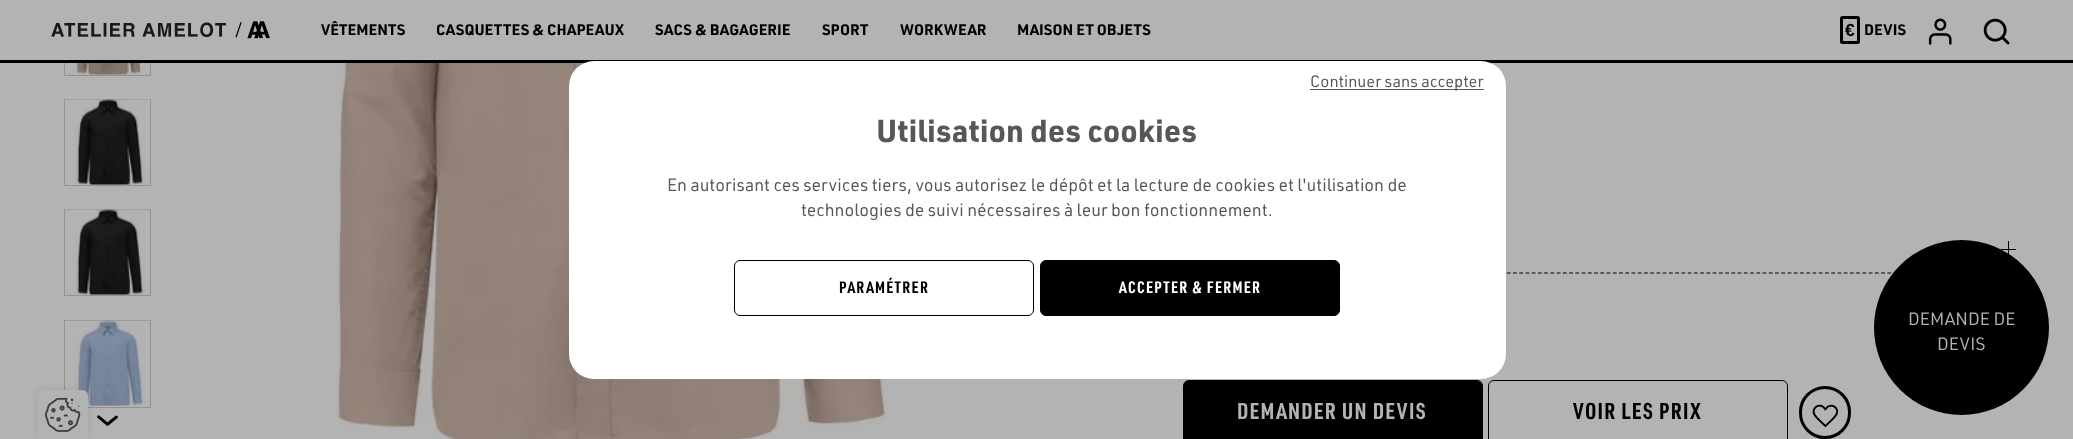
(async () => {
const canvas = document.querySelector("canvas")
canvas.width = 2073
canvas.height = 439
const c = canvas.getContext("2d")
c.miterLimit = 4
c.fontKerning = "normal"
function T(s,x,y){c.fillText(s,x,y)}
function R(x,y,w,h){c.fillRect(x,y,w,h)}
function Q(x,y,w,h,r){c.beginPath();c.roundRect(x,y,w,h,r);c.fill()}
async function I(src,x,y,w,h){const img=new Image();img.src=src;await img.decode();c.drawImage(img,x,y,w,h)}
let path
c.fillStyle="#b3b3b3"
R(0,0,2073,439)
c.strokeStyle="#929292"
c.strokeRect(64.5,-.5,86,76)
R(64,0,87,60)
c.fillStyle="#000"
R(0,60,2073,3)
await I("1.png",51,21,219,18)
c.font="bold 15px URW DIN"
T("VÊTEMENTS",321,35)
T("CASQUETTES & CHAPEAUX",436,35)
T("SACS & BAGAGERIE",655,35)
T("SPORT",822,35)
T("WORKWEAR",900,35)
T("MAISON ET OBJETS",1017,35)
c.beginPath()
c.roundRect(1841.5,17.5,17,25,1)
c.strokeStyle="#000"
c.lineWidth=3
c.stroke()
c.font="bold 17.5px Liberation Sans"
T("€",1845,36)
c.font="bold 15px URW DIN"
T("DEVIS",1864,35)
await I("2.png",1928,18,24,27)
await I("3.png",1983,18,27,27)
await I("4.png",74,63,71,12)
c.strokeStyle="#929292"
c.lineWidth=1
c.strokeRect(64.5,99.5,86,86)
await I("5.png",65,99,85,86)
c.strokeRect(64.5,209.5,86,86)
await I("5.png",65,209,85,86)
c.strokeRect(64.5,320.5,86,87)
await I("6.png",65,320,85,86)
await I("7.png",97,415,21,11)
await I("8.png",334,63,554,376)
path = new Path2D("M1201 273h821.5")
c.strokeStyle="#000"
c.lineWidth=1.2
c.setLineDash([3.75,2.49])
c.stroke(path)
R(2001,249,15,1)
R(2008,241,1,15)
c.beginPath()
c.roundRect(1183.5,380.5,299,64,5.5)
c.fill()
c.lineWidth=1
c.setLineDash([])
c.stroke()
c.letterSpacing="1.25px"
c.font="bold 22.5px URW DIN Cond"
c.fillStyle="#b3b3b3"
T("DEMANDER UN DEVIS",1237,419)
c.beginPath()
c.roundRect(1488.5,380.5,299,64,5.5)
c.stroke()
c.fillStyle="#000"
T("VOIR LES PRIX",1573,419)
c.beginPath()
c.roundRect(1800.5,387.5,49,50,24.5)
c.lineWidth=3
c.stroke()
await I("9.png",1812,404,27,23)
c.fillStyle="#fff"
Q(569,61,937,318,25)
c.fillStyle="#57575a"
R(1310,89,174,1)
c.letterSpacing="0px"
c.font="16.25px URW DIN"
T("Continuer sans accepter",1310,87)
c.beginPath()
c.roundRect(734.5,260.5,299,55,5.5)
c.lineWidth=1
c.stroke()
c.letterSpacing="1.25px"
c.font="bold 16.25px URW DIN Cond"
c.fillStyle="#000"
T("PARAMÉTRER",839,293)
c.beginPath()
c.roundRect(1040.5,260.5,299,55,5.5)
c.fill()
c.stroke()
c.fillStyle="#fff"
T("ACCEPTER & FERMER",1119,293)
c.letterSpacing="0px"
c.font="bold 31.25px URW DIN"
c.fillStyle="#57575a"
T("Utilisation des cookies",876,142)
c.font="17.5px URW DIN"
T("En autorisant ces services tiers, vous autorisez le dépôt et la lecture de cookies et l'utilisation de",667,191)
T("technologies de suivi nécessaires à leur bon fonctionnement.",801,216)
c.fillStyle="#0000001a"
c.filter="blur(3px)"
c.beginPath()
c.roundRect(38,390,50,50,6)
c.fill()
c.filter="none"
c.fillStyle="#b3b3b3"
path = new Path2D("M44 390h38c3.5 0 6 2.5 6 6v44h-50v-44c0-3.5 2.5-6 6-6z")
c.fill(path)
await I("10.png",45,397,36,35)
c.fillStyle="#000"
c.beginPath()
c.arc(1961.5,327.5,87.5,0,7)
c.fill()
c.fillStyle="#b3b3b3"
T("DEMANDE DE",1908,325)
T("DEVIS",1937,350)
})()
